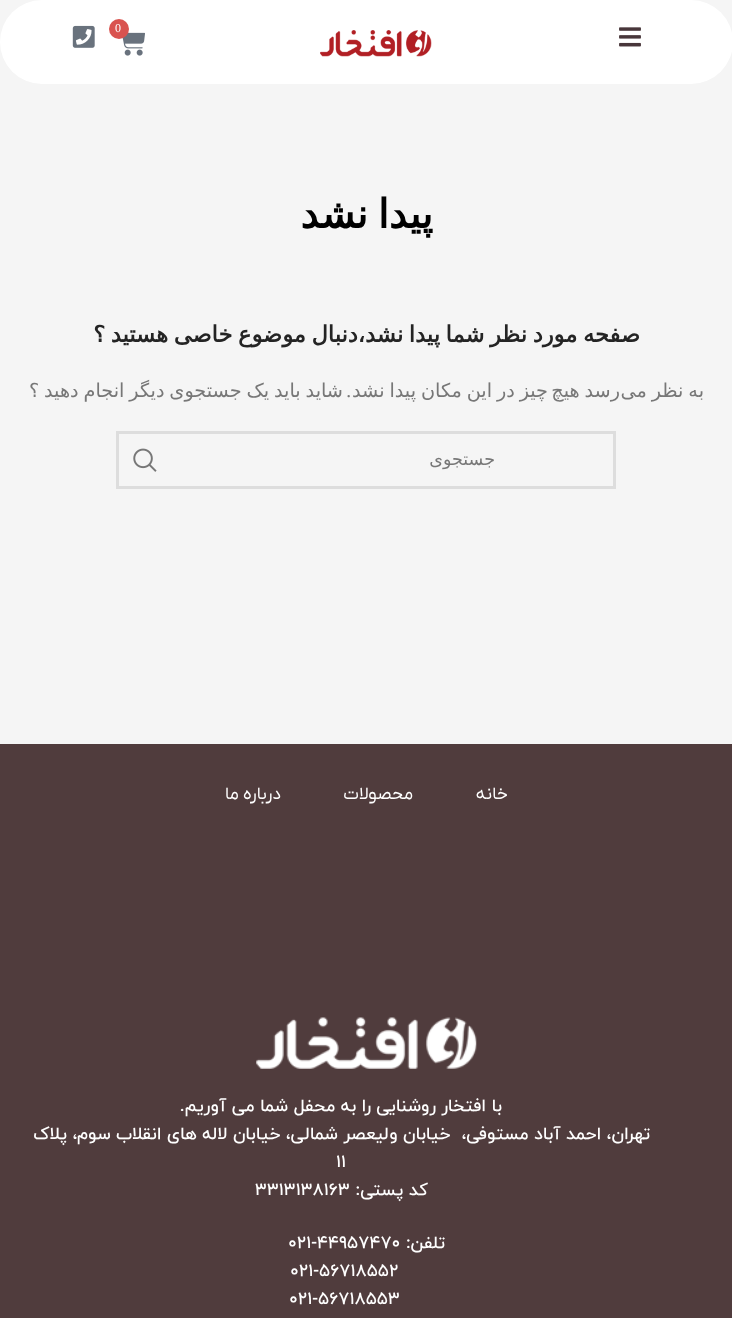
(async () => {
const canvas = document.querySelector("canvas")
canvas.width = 732
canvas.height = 1318
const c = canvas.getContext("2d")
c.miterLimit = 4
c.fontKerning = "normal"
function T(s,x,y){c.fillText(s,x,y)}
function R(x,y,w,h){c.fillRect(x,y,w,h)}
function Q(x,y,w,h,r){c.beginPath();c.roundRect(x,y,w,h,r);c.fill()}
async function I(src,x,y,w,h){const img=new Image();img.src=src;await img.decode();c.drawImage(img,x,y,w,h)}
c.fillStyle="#f5f5f5"
R(0,0,732,1318)
c.fillStyle="#fff"
Q(0,0,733,84,42)
await I("1.png",619,27,22,20)
await I("2.png",320,30,112,27)
await I("3.png",122,32,23,24)
c.fillStyle="#d9534f"
c.beginPath()
c.arc(119,29,10,0,7)
c.fill()
c.font="12px Liberation Serif"
c.fillStyle="#fff"
T("0",115,32)
await I("4.png",72,25,23,23)
c.wordSpacing="-3px"
c.direction="rtl"
c.font="bold 40px DejaVu Sans"
c.fillStyle="#000"
T("پیدا نشد",433,228)
c.wordSpacing="-1.5px"
c.font="bold 22.5px DejaVu Sans"
c.fillStyle="#242424"
T("صفحه مورد نظر شما پیدا نشد،دنبال موضوع خاصی هستید ؟",640,342)
c.wordSpacing="-1.25px"
c.font="19.25px DejaVu Sans"
c.fillStyle="#777"
T("به نظر می",704,397)
T("رسد هیچ",620,397)
T("چیز در این مکان پیدا نشد",548,397)
c.wordSpacing="0px"
c.font="19.25px Liberation Serif"
T(".",351,397)
c.wordSpacing="-1.25px"
c.font="19.25px DejaVu Sans"
T("شاید باید یک جستجوی دیگر انجام دهید ؟",343,397)
c.strokeStyle="#ddd"
c.lineWidth=3
c.strokeRect(117.5,432.5,497,55)
c.wordSpacing="0px"
c.font="17.5px DejaVu Sans"
T("جستجوی",495,465)
await I("5.png",133,448,24,24)
c.fillStyle="#503c3d"
R(0,744,732,574)
c.font="17.5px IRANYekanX"
c.fillStyle="#fff"
T("خانه",508,799)
T("محصولات",413,799)
T("درباره ما",281,799)
await I("6.png",256,1017,221,52)
c.font="500 17.5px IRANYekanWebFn"
T("با افتخار روشنایی را به محفل شما می آوریم.",502,1111)
T("تهران، احمد آباد مستوفی،  خیابان ولیعصر شمالی، خیابان لاله های انقلاب سوم، پلاک",650,1139)
c.direction="ltr"
T("11",336,1167)
c.direction="rtl"
T("کد پستی:",428,1195)
c.direction="ltr"
T("3313138163",255,1195)
c.direction="rtl"
T("تلفن:",445,1248)
c.direction="ltr"
T("021-44957470",288,1248)
T("021-56718552",290,1276)
T("021-56718553",289,1304)
})()
